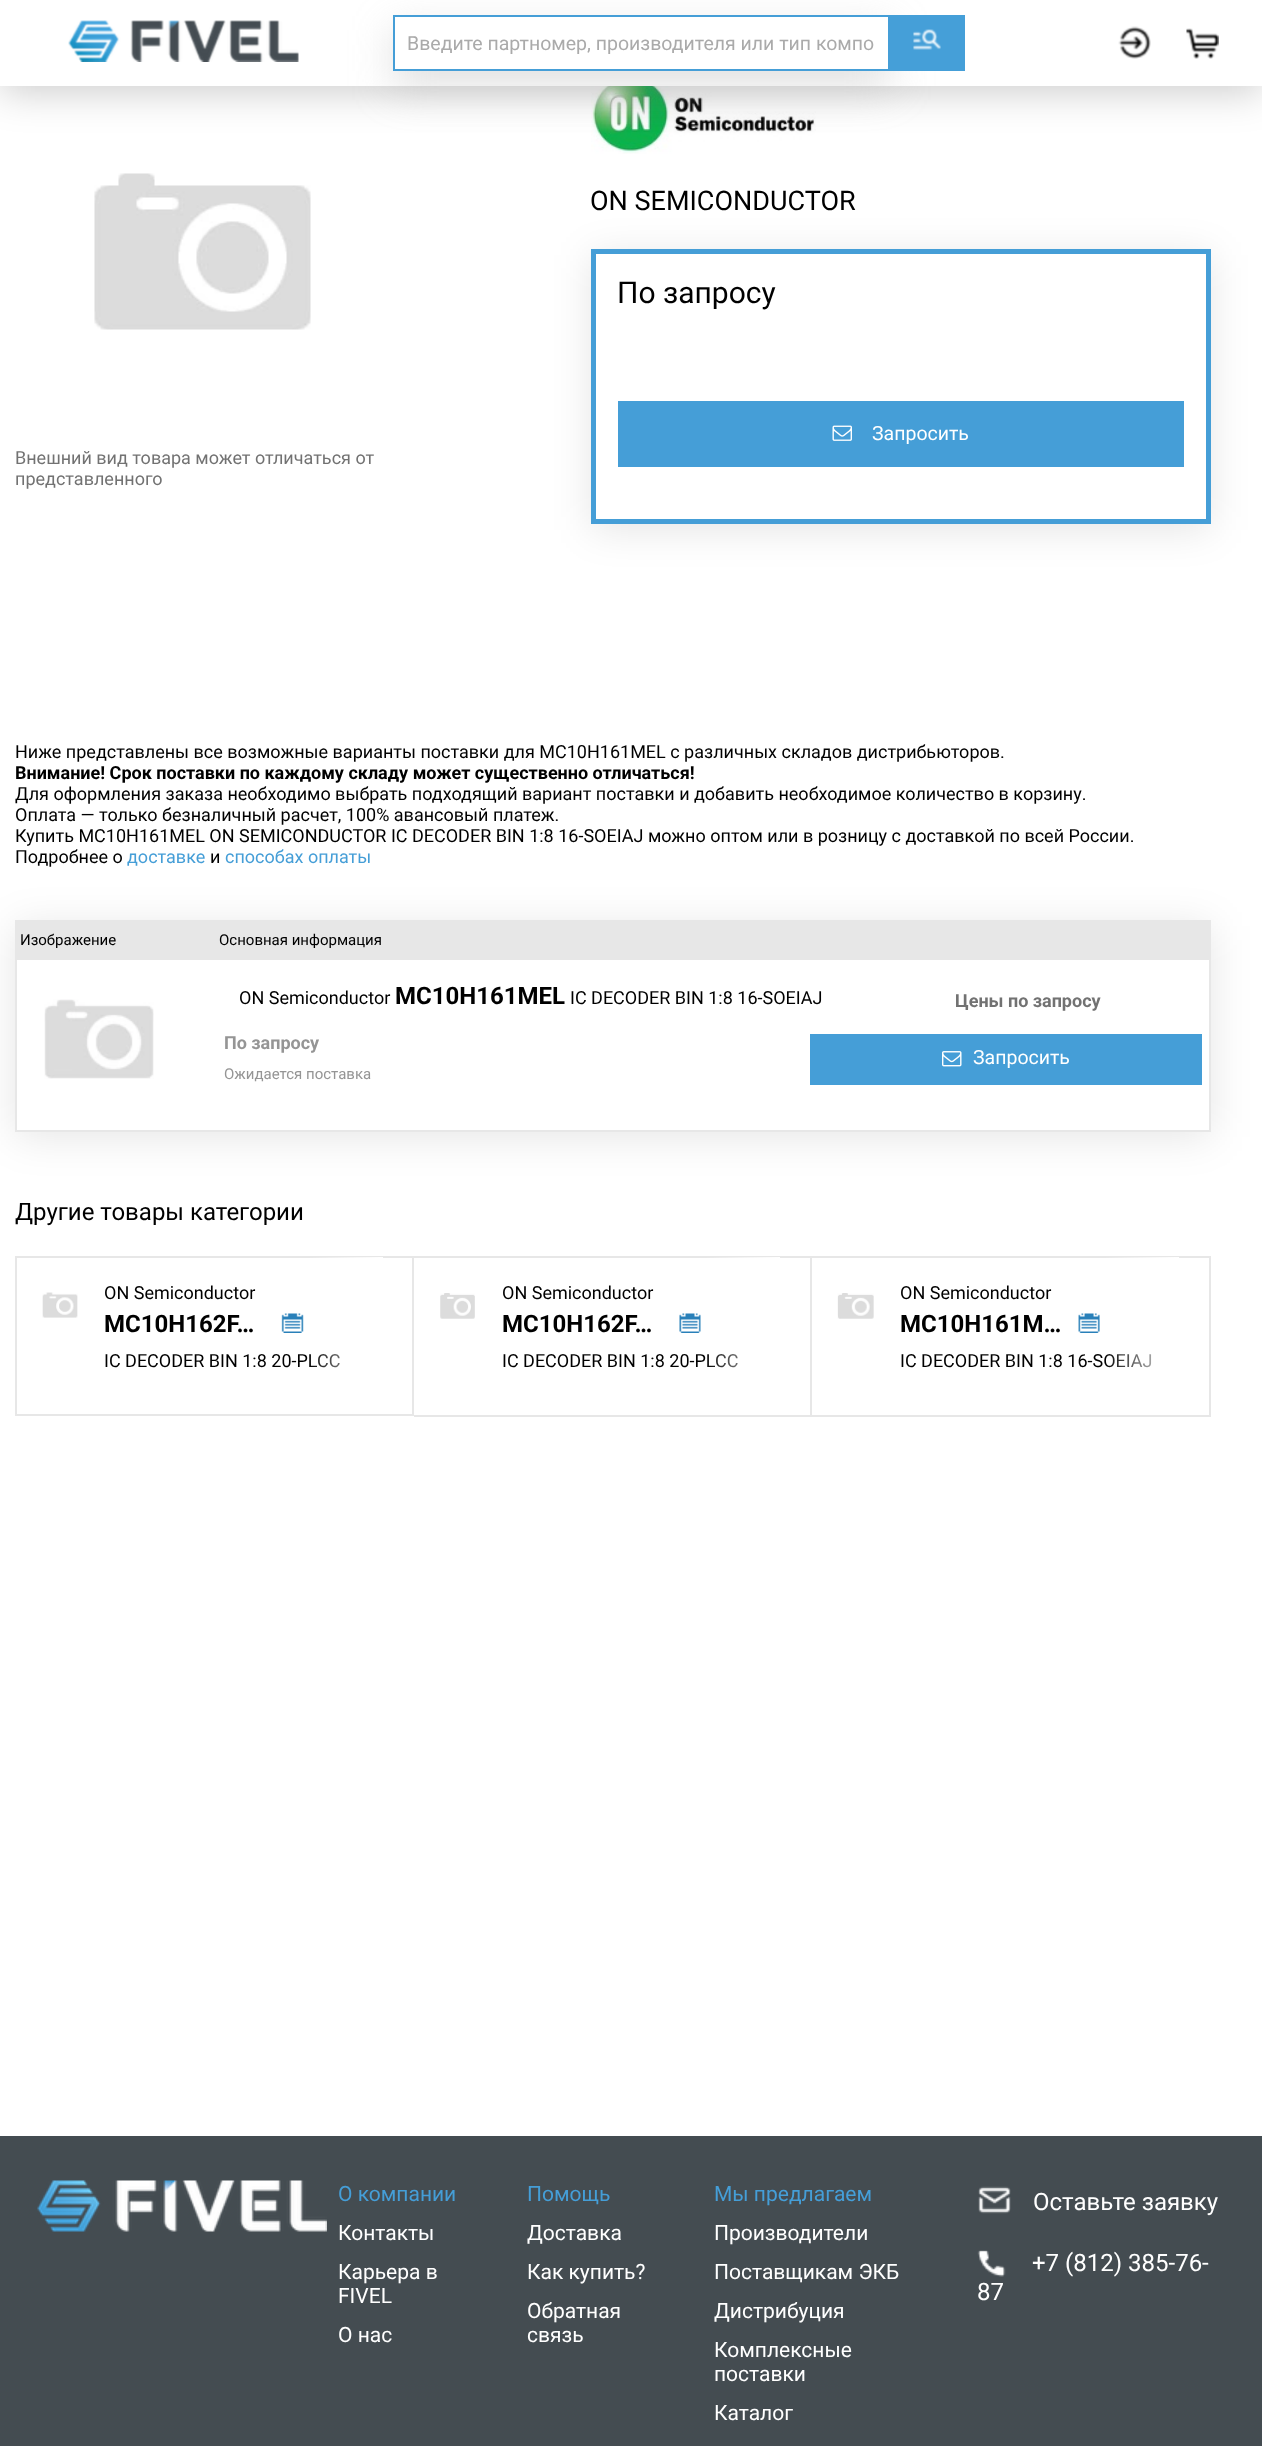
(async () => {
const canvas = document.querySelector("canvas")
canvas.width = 1262
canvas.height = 2446
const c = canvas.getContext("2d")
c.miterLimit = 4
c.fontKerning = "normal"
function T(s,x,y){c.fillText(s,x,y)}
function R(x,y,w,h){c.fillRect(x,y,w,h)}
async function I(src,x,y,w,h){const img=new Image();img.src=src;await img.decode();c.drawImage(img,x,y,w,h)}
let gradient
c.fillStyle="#fff"
R(0,0,1262,2446)
await I("5.png",591,86,225,68)
c.fillStyle="#00000033"
c.filter="blur(19.5px)"
c.beginPath()
c.rect(0,6,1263,86)
c.fill()
c.filter="none"
c.fillStyle="#fff"
R(0,0,1262,86)
await I("1.png",68,20,231,42)
c.fillStyle="#aaaaaa5e"
c.filter="blur(21px)"
c.beginPath()
c.rect(393,30,497,56)
c.fill()
c.filter="none"
c.fillStyle="#fff"
c.beginPath()
c.rect(394,16,495,54)
c.fill()
c.strokeStyle="#459ed7"
c.lineWidth=2
c.stroke()
c.font="19.5px Roboto"
c.fillStyle="#aaa"
T("Введите партномер, производителя или тип компо",407,50)
c.fillStyle="#459fd8"
R(890,15,75,56)
await I("2.png",913,29,28,21)
await I("3.png",1118,26,33,33)
await I("4.png",1186,28,33,31)
c.font="27px Roboto"
c.fillStyle="#000"
T("ON SEMICONDUCTOR",590,210)
c.fillStyle="#0000001a"
c.filter="blur(19.5px)"
c.beginPath()
c.rect(591,255,620,275)
c.fill()
c.filter="none"
c.fillStyle="#fff"
c.beginPath()
c.rect(593.5,251.5,615,270)
c.fill()
c.lineWidth=5
c.stroke()
c.font="30px Roboto"
c.fillStyle="#000"
T("По запросу",617,303)
c.fillStyle="#459ed7"
R(618,401,566,66)
await I("6.png",832,425,20,16)
c.font="19.5px Roboto"
c.fillStyle="#fff"
T("Запросить",872,440)
await I("7.png",94,173,217,157)
c.font="18px Roboto"
c.fillStyle="#727272"
T("Внешний вид товара может отличаться от",15,464)
T("представленного",15,485)
c.fillStyle="#000"
T("Ниже представлены все возможные варианты поставки для MC10H161MEL с различных складов дистрибьюторов.",15,758)
c.font="bold 18px Roboto"
T("Внимание! Срок поставки по каждому складу может существенно отличаться!",15,779)
c.font="18px Roboto"
T("Для оформления заказа необходимо выбрать подходящий вариант поставки и добавить необходимое количество в корзину.",15,800)
T("Оплата — только безналичный расчет, 100% авансовый платеж.",15,821)
T("Купить MC10H161MEL ON SEMICONDUCTOR IC DECODER BIN 1:8 16-SOEIAJ можно оптом или в розницу с доставкой по всей России.",15,842)
T("Подробнее о",15,863)
c.fillStyle="#459ed7"
T("доставке",127,863)
c.fillStyle="#000"
T("и",210,863)
c.fillStyle="#459ed7"
T("способах оплаты",225,863)
c.fillStyle="#0000001a"
c.filter="blur(21px)"
c.beginPath()
c.rect(15,926,1196,211)
c.fill()
c.filter="none"
c.fillStyle="#fff"
R(17,960,1192,170)
c.fillStyle="#e7e7e7"
R(15,920,1196,2)
R(1209,920,2,211)
R(15,1130,1196,2)
R(15,920,2,211)
R(17,922,1192,38)
c.font="15px Roboto"
c.fillStyle="#000"
T("Изображение",20,945)
T("Основная информация",219,945)
await I("8.png",44,999,110,80)
c.font="18px Roboto"
T("ON Semiconductor",239,1004)
c.font="bold 24px Roboto"
T("MC10H161MEL",395,1004)
c.font="18px Roboto"
T("IC DECODER BIN 1:8 16-SOEIAJ",570,1004)
c.font="bold 18px Roboto"
c.fillStyle="#727272"
T("Цены по запросу",955,1007)
c.fillStyle="#959595"
T("По запросу",224,1049)
c.font="15px Roboto"
T("Ожидается поставка",224,1079)
c.fillStyle="#459ed7"
R(810,1034,392,51)
await I("9.png",942,1051,20,16)
c.font="19.5px Roboto"
c.fillStyle="#fff"
T("Запросить",973,1064)
c.font="24px Roboto"
c.fillStyle="#000"
T("Другие товары категории",15,1220)
c.strokeStyle="#e7e7e7"
c.lineWidth=2
c.strokeRect(16,1257,397,158)
await I("10.png",42,1292,36,26)
c.font="18px Roboto"
T("ON Semiconductor",104,1299)
T("IC DECODER BIN 1:8 20-PLCC",104,1367)
gradient = c.createLinearGradient(308,1314,383,1314)
gradient.addColorStop(0,"#ffffff00")
gradient.addColorStop(1,"#fff")
c.fillStyle = gradient
R(310,1257,73,111)
await I("11.png",281,1313,23,20)
c.font="bold 24px Roboto"
c.fillStyle="#000"
T("MC10H162F…",104,1332)
c.fillStyle="#e7e7e7"
R(414,1256,797,2)
R(810,1256,2,160)
R(414,1415,398,2)
await I("12.png",440,1293,35,26)
c.font="18px Roboto"
c.fillStyle="#000"
T("ON Semiconductor",502,1299)
T("IC DECODER BIN 1:8 20-PLCC",502,1367)
gradient = c.createLinearGradient(705,1314,780,1314)
gradient.addColorStop(0,"#ffffff00")
gradient.addColorStop(1,"#fff")
c.fillStyle = gradient
R(707,1257,73,111)
await I("13.png",679,1313,22,20)
c.font="bold 24px Roboto"
c.fillStyle="#000"
T("MC10H162F…",502,1332)
c.fillStyle="#e7e7e7"
R(1209,1256,2,160)
R(812,1415,399,2)
await I("14.png",837,1293,37,26)
c.font="18px Roboto"
c.fillStyle="#000"
T("ON Semiconductor",900,1299)
T("IC DECODER BIN 1:8 16-SOEIAJ",900,1367)
gradient = c.createLinearGradient(1104,1314,1179,1314)
gradient.addColorStop(0,"#ffffff00")
gradient.addColorStop(1,"#fff")
c.fillStyle = gradient
R(1106,1257,73,111)
await I("15.png",1078,1313,22,20)
c.font="bold 24px Roboto"
c.fillStyle="#000"
T("MC10H161M…",900,1332)
c.fillStyle="#444c51"
R(0,2136,1262,310)
await I("16.png",37,2180,290,52)
c.font="21px Roboto"
c.fillStyle="#459ed7"
T("О компании",338,2201)
c.fillStyle="#fff"
T("Контакты",338,2240)
T("Карьера в",338,2279)
T("FIVEL",338,2303)
T("О нас",338,2342)
c.fillStyle="#459ed7"
T("Помощь",527,2201)
c.fillStyle="#fff"
T("Доставка",527,2240)
T("Как купить?",527,2279)
T("Обратная",527,2318)
T("связь",527,2342)
c.fillStyle="#459ed7"
T("Мы предлагаем",714,2201)
c.fillStyle="#fff"
T("Производители",714,2240)
T("Поставщикам ЭКБ",714,2279)
T("Дистрибуция",714,2318)
T("Комплексные",714,2357)
T("поставки",714,2381)
T("Каталог",714,2420)
await I("17.png",978,2186,33,28)
c.font="24px Roboto"
T("Оставьте заявку",1033,2210)
await I("18.png",977,2250,29,27)
T("+7 (812) 385-76-",1032,2271)
T("87",977,2300)
})()
